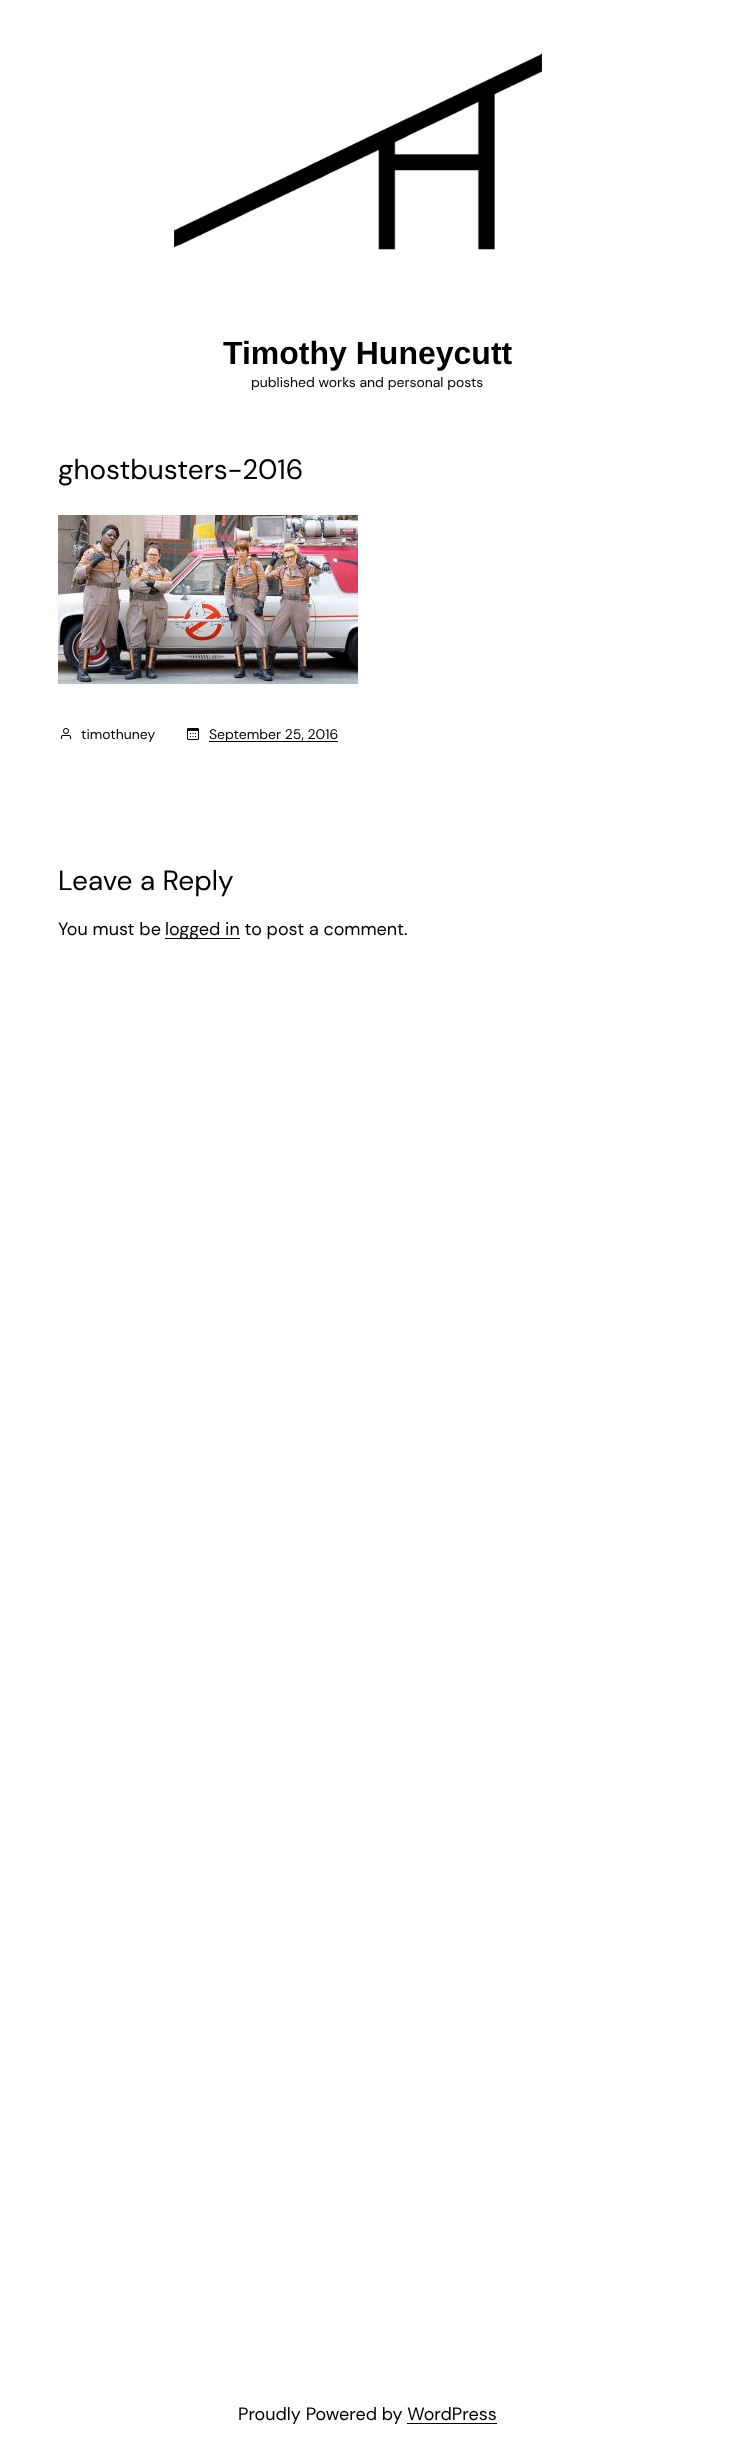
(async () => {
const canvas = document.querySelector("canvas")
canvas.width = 735
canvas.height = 2459
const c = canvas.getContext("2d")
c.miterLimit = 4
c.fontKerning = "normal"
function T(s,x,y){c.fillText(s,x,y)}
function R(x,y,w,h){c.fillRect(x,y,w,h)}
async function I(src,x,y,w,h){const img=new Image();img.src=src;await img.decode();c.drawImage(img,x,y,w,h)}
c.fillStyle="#fff"
R(0,0,735,2459)
await I("1.png",174,53,368,197)
c.font="bold 32px Liberation Sans"
c.fillStyle="#000"
T("Timothy Huneycutt",223,364)
c.font="14px DM Sans"
T("published works and personal posts",251,387)
c.font="28px DM Sans"
T("ghostbusters-2016",58,479)
await I("2.png",58,515,300,169)
await I("3.png",61,728,10,11)
c.font="14px DM Sans"
T("timothuney",81,739)
await I("4.png",187,728,12,12)
R(209,741,129,1)
T("September 25, 2016",209,739)
c.font="28px DM Sans"
T("Leave a Reply",58,890)
c.font="18px DM Sans"
T("You must be",58,935)
R(165,938,75,1)
T("logged in to post a comment.",165,935)
T("Proudly Powered by WordPress",238,2420)
R(407,2423,90,1)
})()
